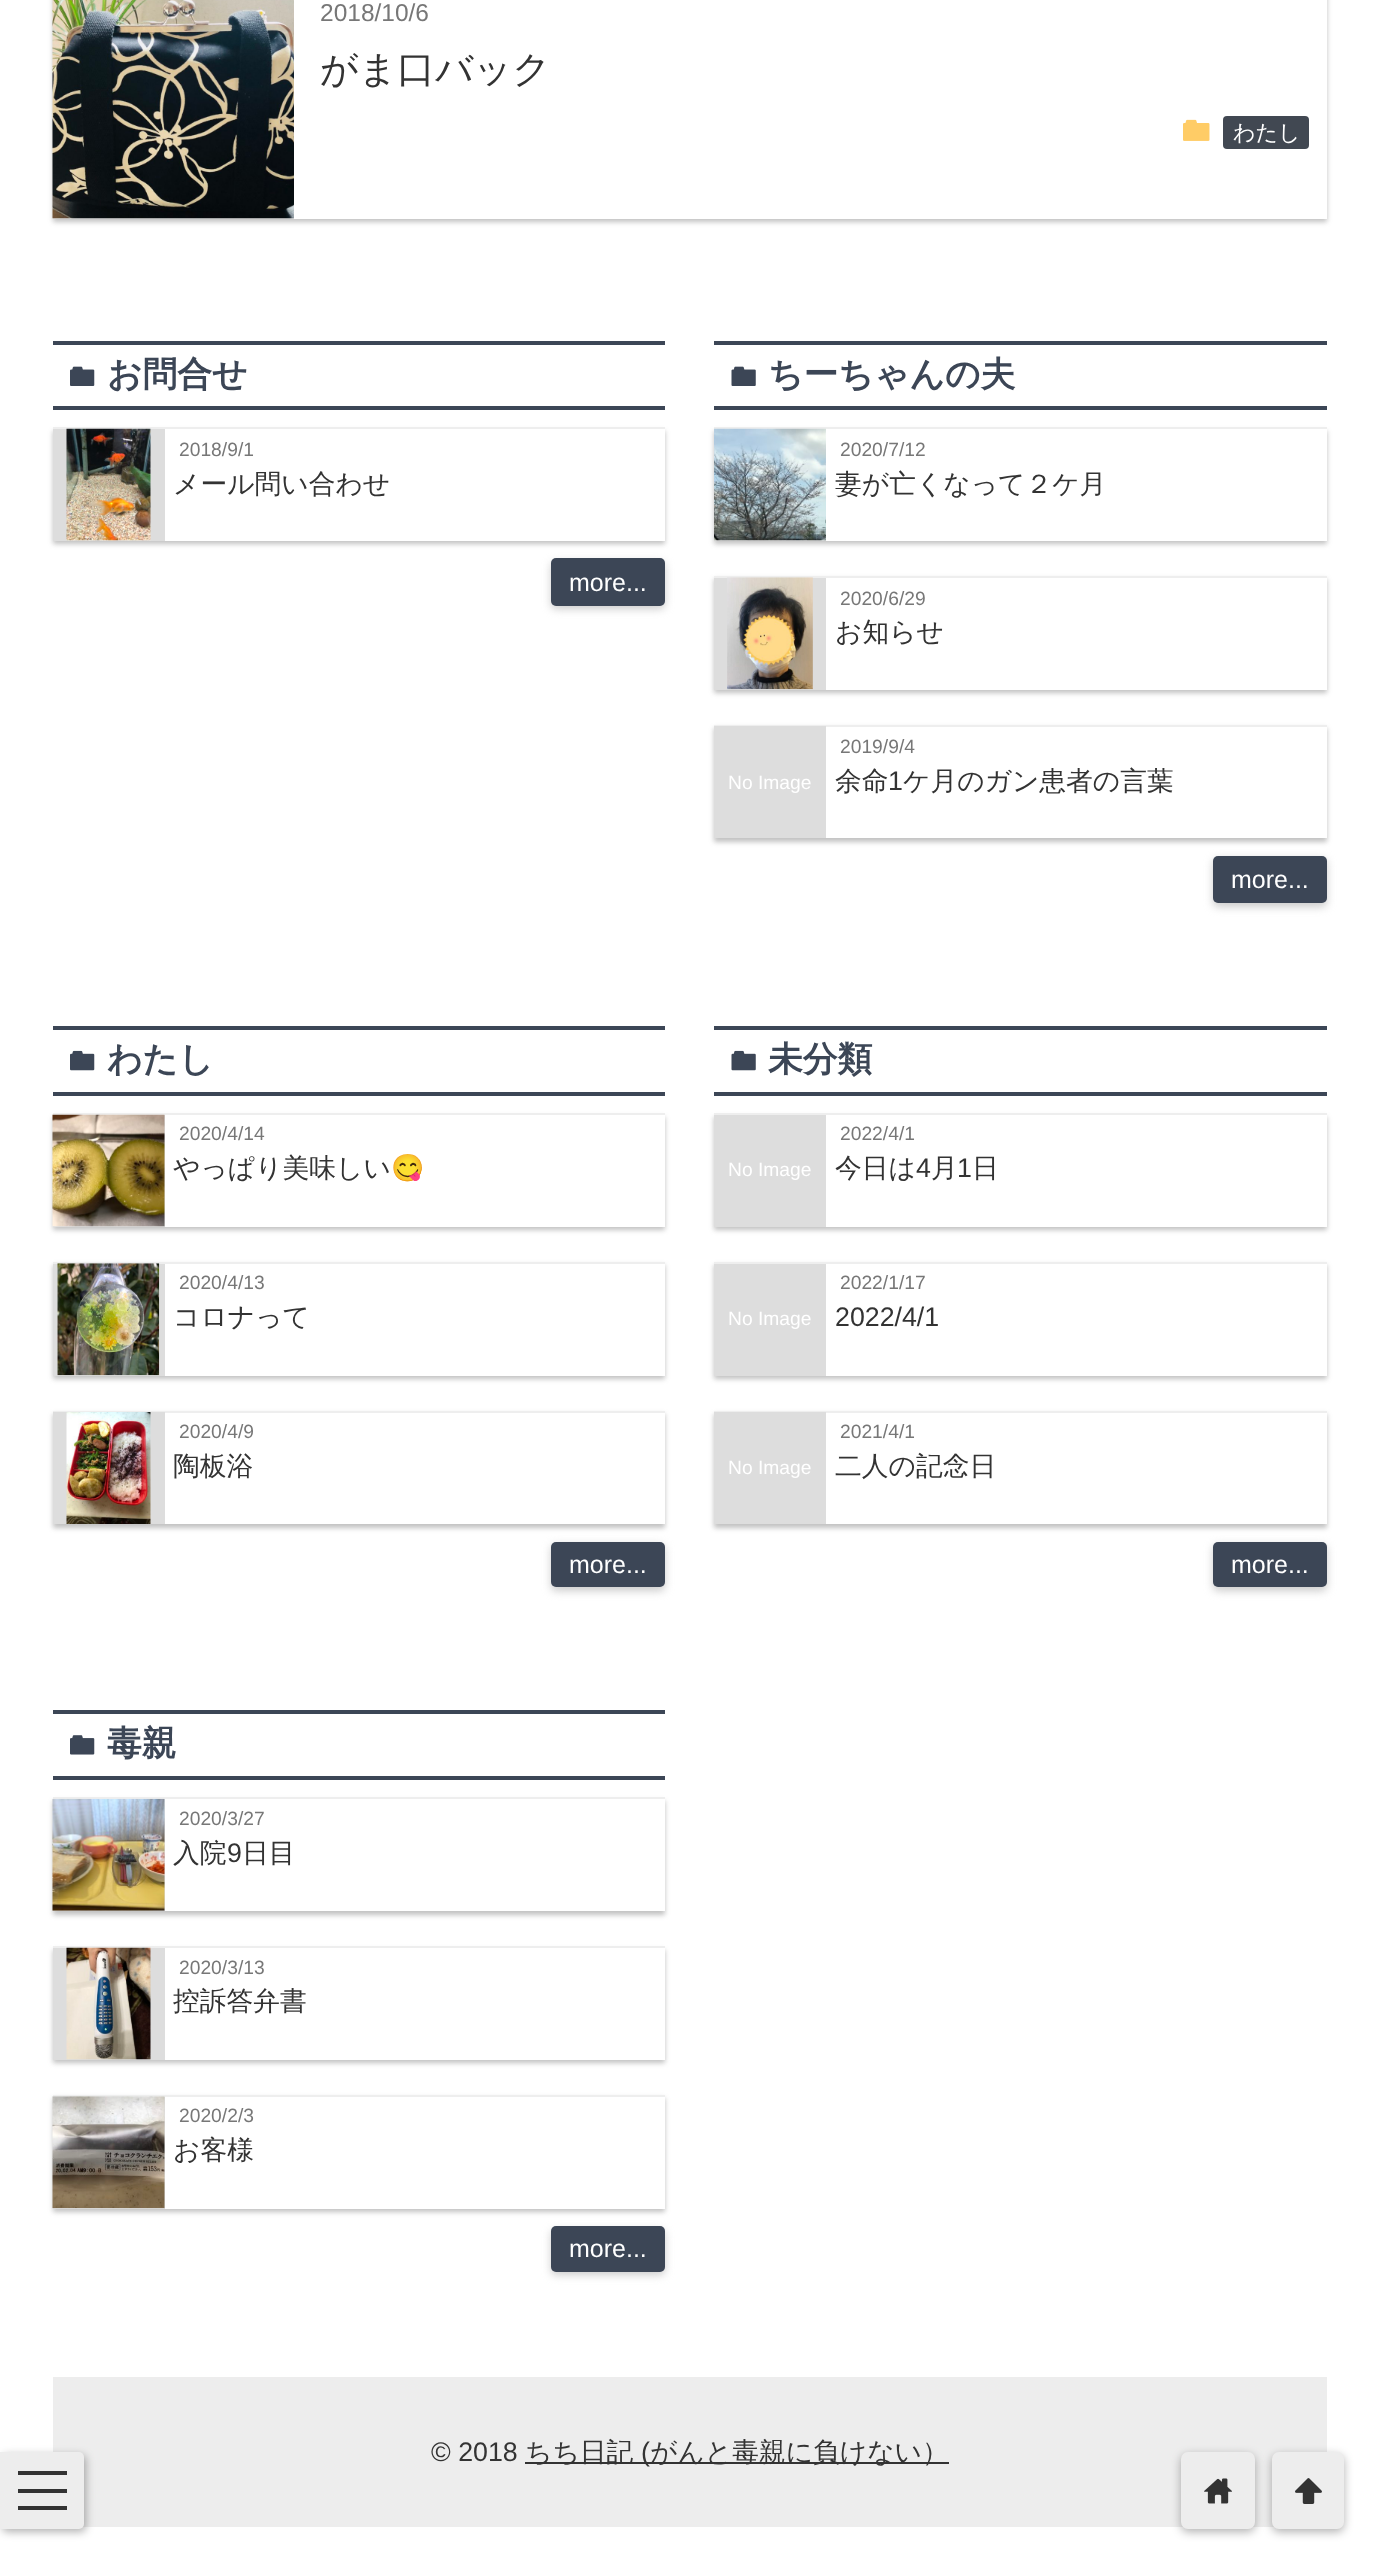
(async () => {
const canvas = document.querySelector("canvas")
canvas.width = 1378
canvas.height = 2563
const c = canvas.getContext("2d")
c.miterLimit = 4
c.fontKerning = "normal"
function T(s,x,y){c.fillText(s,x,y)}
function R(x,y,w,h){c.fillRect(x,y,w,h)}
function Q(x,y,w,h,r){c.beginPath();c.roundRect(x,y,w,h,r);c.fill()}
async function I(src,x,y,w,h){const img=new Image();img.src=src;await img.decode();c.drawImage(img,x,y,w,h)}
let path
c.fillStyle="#fff"
R(0,0,1378,2563)
c.fillStyle="#64646466"
c.filter="blur(2.5px)"
c.beginPath()
c.rect(53,-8,1274,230)
c.fill()
c.filter="none"
c.fillStyle="#fff"
R(294,0,1033,219)
c.fillStyle="#ddd"
R(53,218,241,1)
await I("1.png",52,0,242,219)
c.font="24.5px Liberation Sans"
c.fillStyle="#777"
T("2018/10/6",320,21)
c.font="500 37.75px WenQuanYi Zen Hei"
c.fillStyle="#333"
T("がま口バック",320,82)
await I("2.png",1183,119,27,22)
c.fillStyle="#414852"
Q(1223,116,86,33,4)
c.font="500 22px WenQuanYi Zen Hei"
c.fillStyle="#fff"
T("わたし",1233,140)
c.fillStyle="#3c4656"
R(53,341,612,4)
R(53,406,612,4)
await I("3.png",70,366,25,20)
c.font="bold 34.75px WenQuanYi Zen Hei"
T("お問合せ",107,386)
c.fillStyle="#64646466"
c.filter="blur(2.5px)"
c.beginPath()
c.rect(53,431,612,113)
c.fill()
c.filter="none"
c.fillStyle="#fff"
R(165,429,500,112)
c.fillStyle="#eee"
R(53,427,612,2)
c.fillStyle="#ddd"
R(53,429,112,112)
await I("4.png",66,428,85,113)
c.font="19.25px Liberation Sans"
c.fillStyle="#777"
T("2018/9/1",179,456)
c.font="500 26.75px WenQuanYi Zen Hei"
c.fillStyle="#333"
T("メール問い合わせ",173,493)
c.fillStyle="#ccc"
c.filter="blur(4.5px)"
c.beginPath()
c.roundRect(551,562,114,47,5)
c.fill()
c.filter="none"
c.fillStyle="#3c4656"
Q(551,558,114,48,5)
c.font="25px Liberation Sans"
c.fillStyle="#fff"
T("more...",569,591)
c.fillStyle="#3c4656"
R(714,341,613,4)
R(714,406,613,4)
await I("5.png",731,366,25,20)
c.font="bold 34.75px WenQuanYi Zen Hei"
T("ちーちゃんの夫",768,386)
c.fillStyle="#64646466"
c.filter="blur(2.5px)"
c.beginPath()
c.rect(714,431,613,113)
c.fill()
c.filter="none"
c.fillStyle="#fff"
R(826,429,501,112)
c.fillStyle="#eee"
R(714,427,613,2)
c.fillStyle="#ddd"
R(714,540,112,1)
await I("6.png",714,428,112,113)
c.font="19.25px Liberation Sans"
c.fillStyle="#777"
T("2020/7/12",840,456)
c.font="500 26.75px WenQuanYi Zen Hei"
c.fillStyle="#333"
T("妻が亡くなって２ケ月",835,493)
c.fillStyle="#64646466"
c.filter="blur(2.5px)"
c.beginPath()
c.rect(714,579,613,114)
c.fill()
c.filter="none"
c.fillStyle="#fff"
R(826,578,501,112)
c.fillStyle="#eee"
R(714,576,613,2)
c.fillStyle="#ddd"
R(714,578,112,112)
await I("7.png",727,577,86,113)
c.font="19.25px Liberation Sans"
c.fillStyle="#777"
T("2020/6/29",840,605)
c.font="500 26.75px WenQuanYi Zen Hei"
c.fillStyle="#333"
T("お知らせ",835,641)
c.fillStyle="#64646466"
c.filter="blur(2.5px)"
c.beginPath()
c.rect(714,728,613,114)
c.fill()
c.filter="none"
c.fillStyle="#fff"
R(826,727,501,111)
c.fillStyle="#eee"
R(714,725,613,2)
c.fillStyle="#ddd"
R(714,726,112,112)
c.font="19.25px Liberation Sans"
c.fillStyle="#fff"
T("No Image",728,789)
c.fillStyle="#777"
T("2019/9/4",840,753)
c.font="500 26.75px WenQuanYi Zen Hei"
c.fillStyle="#333"
T("余命",835,790)
c.font="26.75px Liberation Sans"
T("1",888,790)
c.font="500 26.75px WenQuanYi Zen Hei"
T("ケ月のガン患者の言葉",903,790)
c.fillStyle="#ccc"
c.filter="blur(4.5px)"
c.beginPath()
c.roundRect(1213,859,114,48,5)
c.fill()
c.filter="none"
c.fillStyle="#3c4656"
Q(1213,856,114,47,5)
c.font="25px Liberation Sans"
c.fillStyle="#fff"
T("more...",1231,888)
c.fillStyle="#3c4656"
R(53,1026,612,4)
R(53,1092,612,4)
await I("8.png",70,1050,25,21)
c.font="bold 34.75px WenQuanYi Zen Hei"
T("わたし",107,1071)
c.fillStyle="#64646466"
c.filter="blur(2.5px)"
c.beginPath()
c.rect(53,1117,612,113)
c.fill()
c.filter="none"
c.fillStyle="#fff"
R(165,1115,500,112)
c.fillStyle="#eee"
R(53,1113,612,2)
c.fillStyle="#ddd"
R(53,1115,112,112)
await I("9.png",52,1114,113,113)
c.font="19.25px Liberation Sans"
c.fillStyle="#777"
T("2020/4/14",179,1140)
c.font="500 26.75px WenQuanYi Zen Hei"
c.fillStyle="#333"
T("やっぱり美味しい",173,1177)
c.font="26.75px Noto Color Emoji"
T("😋",391,1177)
c.fillStyle="#64646466"
c.filter="blur(2.5px)"
c.beginPath()
c.rect(53,1265,612,114)
c.fill()
c.filter="none"
c.fillStyle="#fff"
R(165,1264,500,112)
c.fillStyle="#eee"
R(53,1262,612,2)
c.fillStyle="#ddd"
R(53,1264,112,112)
await I("10.png",57,1263,103,113)
c.font="19.25px Liberation Sans"
c.fillStyle="#777"
T("2020/4/13",179,1289)
c.font="500 26.75px WenQuanYi Zen Hei"
c.fillStyle="#333"
T("コロナって",173,1326)
c.save()
path = new Path2D("M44 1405h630v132h-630zm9 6h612v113h-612z")
c.clip(path,"evenodd")
c.fillStyle="#64646466"
c.filter="blur(2.5px)"
c.beginPath()
c.rect(53,1414,612,114)
c.fill()
c.filter="none"
c.restore()
c.fillStyle="#eee"
R(53,1411,612,2)
c.fillStyle="#ddd"
R(53,1412,112,112)
await I("11.png",66,1412,85,112)
c.font="19.25px Liberation Sans"
c.fillStyle="#777"
T("2020/4/9",179,1438)
c.font="500 26.75px WenQuanYi Zen Hei"
c.fillStyle="#333"
T("陶板浴",173,1475)
c.fillStyle="#ccc"
c.filter="blur(4.5px)"
c.beginPath()
c.roundRect(551,1545,114,46,5)
c.fill()
c.filter="none"
c.fillStyle="#3c4656"
Q(551,1542,114,45,5)
c.font="25px Liberation Sans"
c.fillStyle="#fff"
T("more...",569,1573)
c.fillStyle="#3c4656"
R(714,1026,613,4)
R(714,1092,613,4)
await I("12.png",731,1050,25,21)
c.font="bold 34.75px WenQuanYi Zen Hei"
T("未分類",768,1071)
c.fillStyle="#64646466"
c.filter="blur(2.5px)"
c.beginPath()
c.rect(714,1117,613,113)
c.fill()
c.filter="none"
c.fillStyle="#fff"
R(826,1115,501,112)
c.fillStyle="#eee"
R(714,1113,613,2)
c.fillStyle="#ddd"
R(714,1115,112,112)
c.font="19.25px Liberation Sans"
c.fillStyle="#fff"
T("No Image",728,1176)
c.fillStyle="#777"
T("2022/4/1",840,1140)
c.font="500 26.75px WenQuanYi Zen Hei"
c.fillStyle="#333"
T("今日は",835,1177)
c.font="26.75px Liberation Sans"
T("4",916,1177)
c.font="500 26.75px WenQuanYi Zen Hei"
T("月",931,1177)
c.font="26.75px Liberation Sans"
T("1",957,1177)
c.font="500 26.75px WenQuanYi Zen Hei"
T("日",972,1177)
c.fillStyle="#64646466"
c.filter="blur(2.5px)"
c.beginPath()
c.rect(714,1265,613,114)
c.fill()
c.filter="none"
c.fillStyle="#fff"
R(826,1264,501,112)
c.fillStyle="#eee"
R(714,1262,613,2)
c.fillStyle="#ddd"
R(714,1264,112,112)
c.font="19.25px Liberation Sans"
c.fillStyle="#fff"
T("No Image",728,1325)
c.fillStyle="#777"
T("2022/1/17",840,1289)
c.font="26.75px Liberation Sans"
c.fillStyle="#333"
T("2022/4/1",835,1326)
c.fillStyle="#64646466"
c.filter="blur(2.5px)"
c.beginPath()
c.rect(714,1414,613,114)
c.fill()
c.filter="none"
c.fillStyle="#fff"
R(826,1413,501,111)
c.fillStyle="#eee"
R(714,1411,613,2)
c.fillStyle="#ddd"
R(714,1412,112,112)
c.font="19.25px Liberation Sans"
c.fillStyle="#fff"
T("No Image",728,1474)
c.fillStyle="#777"
T("2021/4/1",840,1438)
c.font="500 26.75px WenQuanYi Zen Hei"
c.fillStyle="#333"
T("二人の記念日",835,1475)
c.fillStyle="#ccc"
c.filter="blur(4.5px)"
c.beginPath()
c.roundRect(1213,1545,114,46,5)
c.fill()
c.filter="none"
c.fillStyle="#3c4656"
Q(1213,1542,114,45,5)
c.font="25px Liberation Sans"
c.fillStyle="#fff"
T("more...",1231,1573)
c.fillStyle="#3c4656"
R(53,1710,612,4)
R(53,1776,612,4)
await I("13.png",70,1735,25,20)
c.font="bold 34.75px WenQuanYi Zen Hei"
T("毒親",107,1755)
c.save()
path = new Path2D("M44 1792h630v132h-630zm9 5h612v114h-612z")
c.clip(path,"evenodd")
c.fillStyle="#64646466"
c.filter="blur(2.5px)"
c.beginPath()
c.rect(53,1801,612,114)
c.fill()
c.filter="none"
c.restore()
c.fillStyle="#eee"
R(53,1797,612,2)
c.fillStyle="#ddd"
R(53,1799,112,112)
await I("14.png",52,1798,113,113)
c.font="19.25px Liberation Sans"
c.fillStyle="#777"
T("2020/3/27",179,1825)
c.font="500 26.75px WenQuanYi Zen Hei"
c.fillStyle="#333"
T("入院",173,1862)
c.font="26.75px Liberation Sans"
T("9",227,1862)
c.font="500 26.75px WenQuanYi Zen Hei"
T("日目",242,1862)
c.fillStyle="#64646466"
c.filter="blur(2.5px)"
c.beginPath()
c.rect(53,1950,612,113)
c.fill()
c.filter="none"
c.fillStyle="#fff"
R(165,1948,500,112)
c.fillStyle="#eee"
R(53,1946,612,2)
c.fillStyle="#ddd"
R(53,1948,112,112)
await I("15.png",66,1947,85,113)
c.font="19.25px Liberation Sans"
c.fillStyle="#777"
T("2020/3/13",179,1974)
c.font="500 26.75px WenQuanYi Zen Hei"
c.fillStyle="#333"
T("控訴答弁書",173,2010)
c.fillStyle="#64646466"
c.filter="blur(2.5px)"
c.beginPath()
c.rect(53,2098,612,114)
c.fill()
c.filter="none"
c.fillStyle="#fff"
R(165,2097,500,112)
c.fillStyle="#eee"
R(53,2095,612,2)
c.fillStyle="#ddd"
R(53,2097,112,112)
await I("16.png",52,2096,113,113)
c.font="19.25px Liberation Sans"
c.fillStyle="#777"
T("2020/2/3",179,2122)
c.font="500 26.75px WenQuanYi Zen Hei"
c.fillStyle="#333"
T("お客様",173,2159)
c.fillStyle="#ccc"
c.filter="blur(4.5px)"
c.beginPath()
c.roundRect(551,2230,114,45,5)
c.fill()
c.filter="none"
c.fillStyle="#3c4656"
Q(551,2226,114,46,5)
c.font="25px Liberation Sans"
c.fillStyle="#fff"
T("more...",569,2257)
c.fillStyle="#ededed"
R(53,2377,1274,150)
c.font="26.75px Liberation Sans"
c.fillStyle="#333"
T("© 2018",431,2461)
R(525,2462,424,2)
c.font="500 26.75px WenQuanYi Zen Hei"
T("ちち日記",525,2461)
c.font="26.75px Liberation Sans"
T("(",641,2461)
c.font="500 26.75px WenQuanYi Zen Hei"
T("がんと毒親に負けない）",650,2461)
c.fillStyle="#0000004d"
c.filter="blur(4.5px)"
c.beginPath()
c.roundRect(2,2455,84,77,5)
c.fill()
c.filter="none"
c.fillStyle="#ededed"
c.beginPath()
c.roundRect(0,2452,84,77,[0,5,5,0])
c.fill()
c.fillStyle="#333"
R(18,2489,49,4)
R(18,2471,49,4)
R(18,2506,49,4)
c.fillStyle="#0000004d"
c.filter="blur(5px)"
c.beginPath()
c.roundRect(1181,2455,74,77,7)
c.fill()
c.filter="none"
c.fillStyle="#ededed"
Q(1181,2452,74,77,7)
await I("17.png",1204,2478,28,26)
c.fillStyle="#0000004d"
c.filter="blur(5px)"
c.beginPath()
c.roundRect(1272,2455,72,77,7)
c.fill()
c.filter="none"
c.fillStyle="#ededed"
Q(1272,2452,72,77,7)
await I("18.png",1295,2478,27,26)
})()
